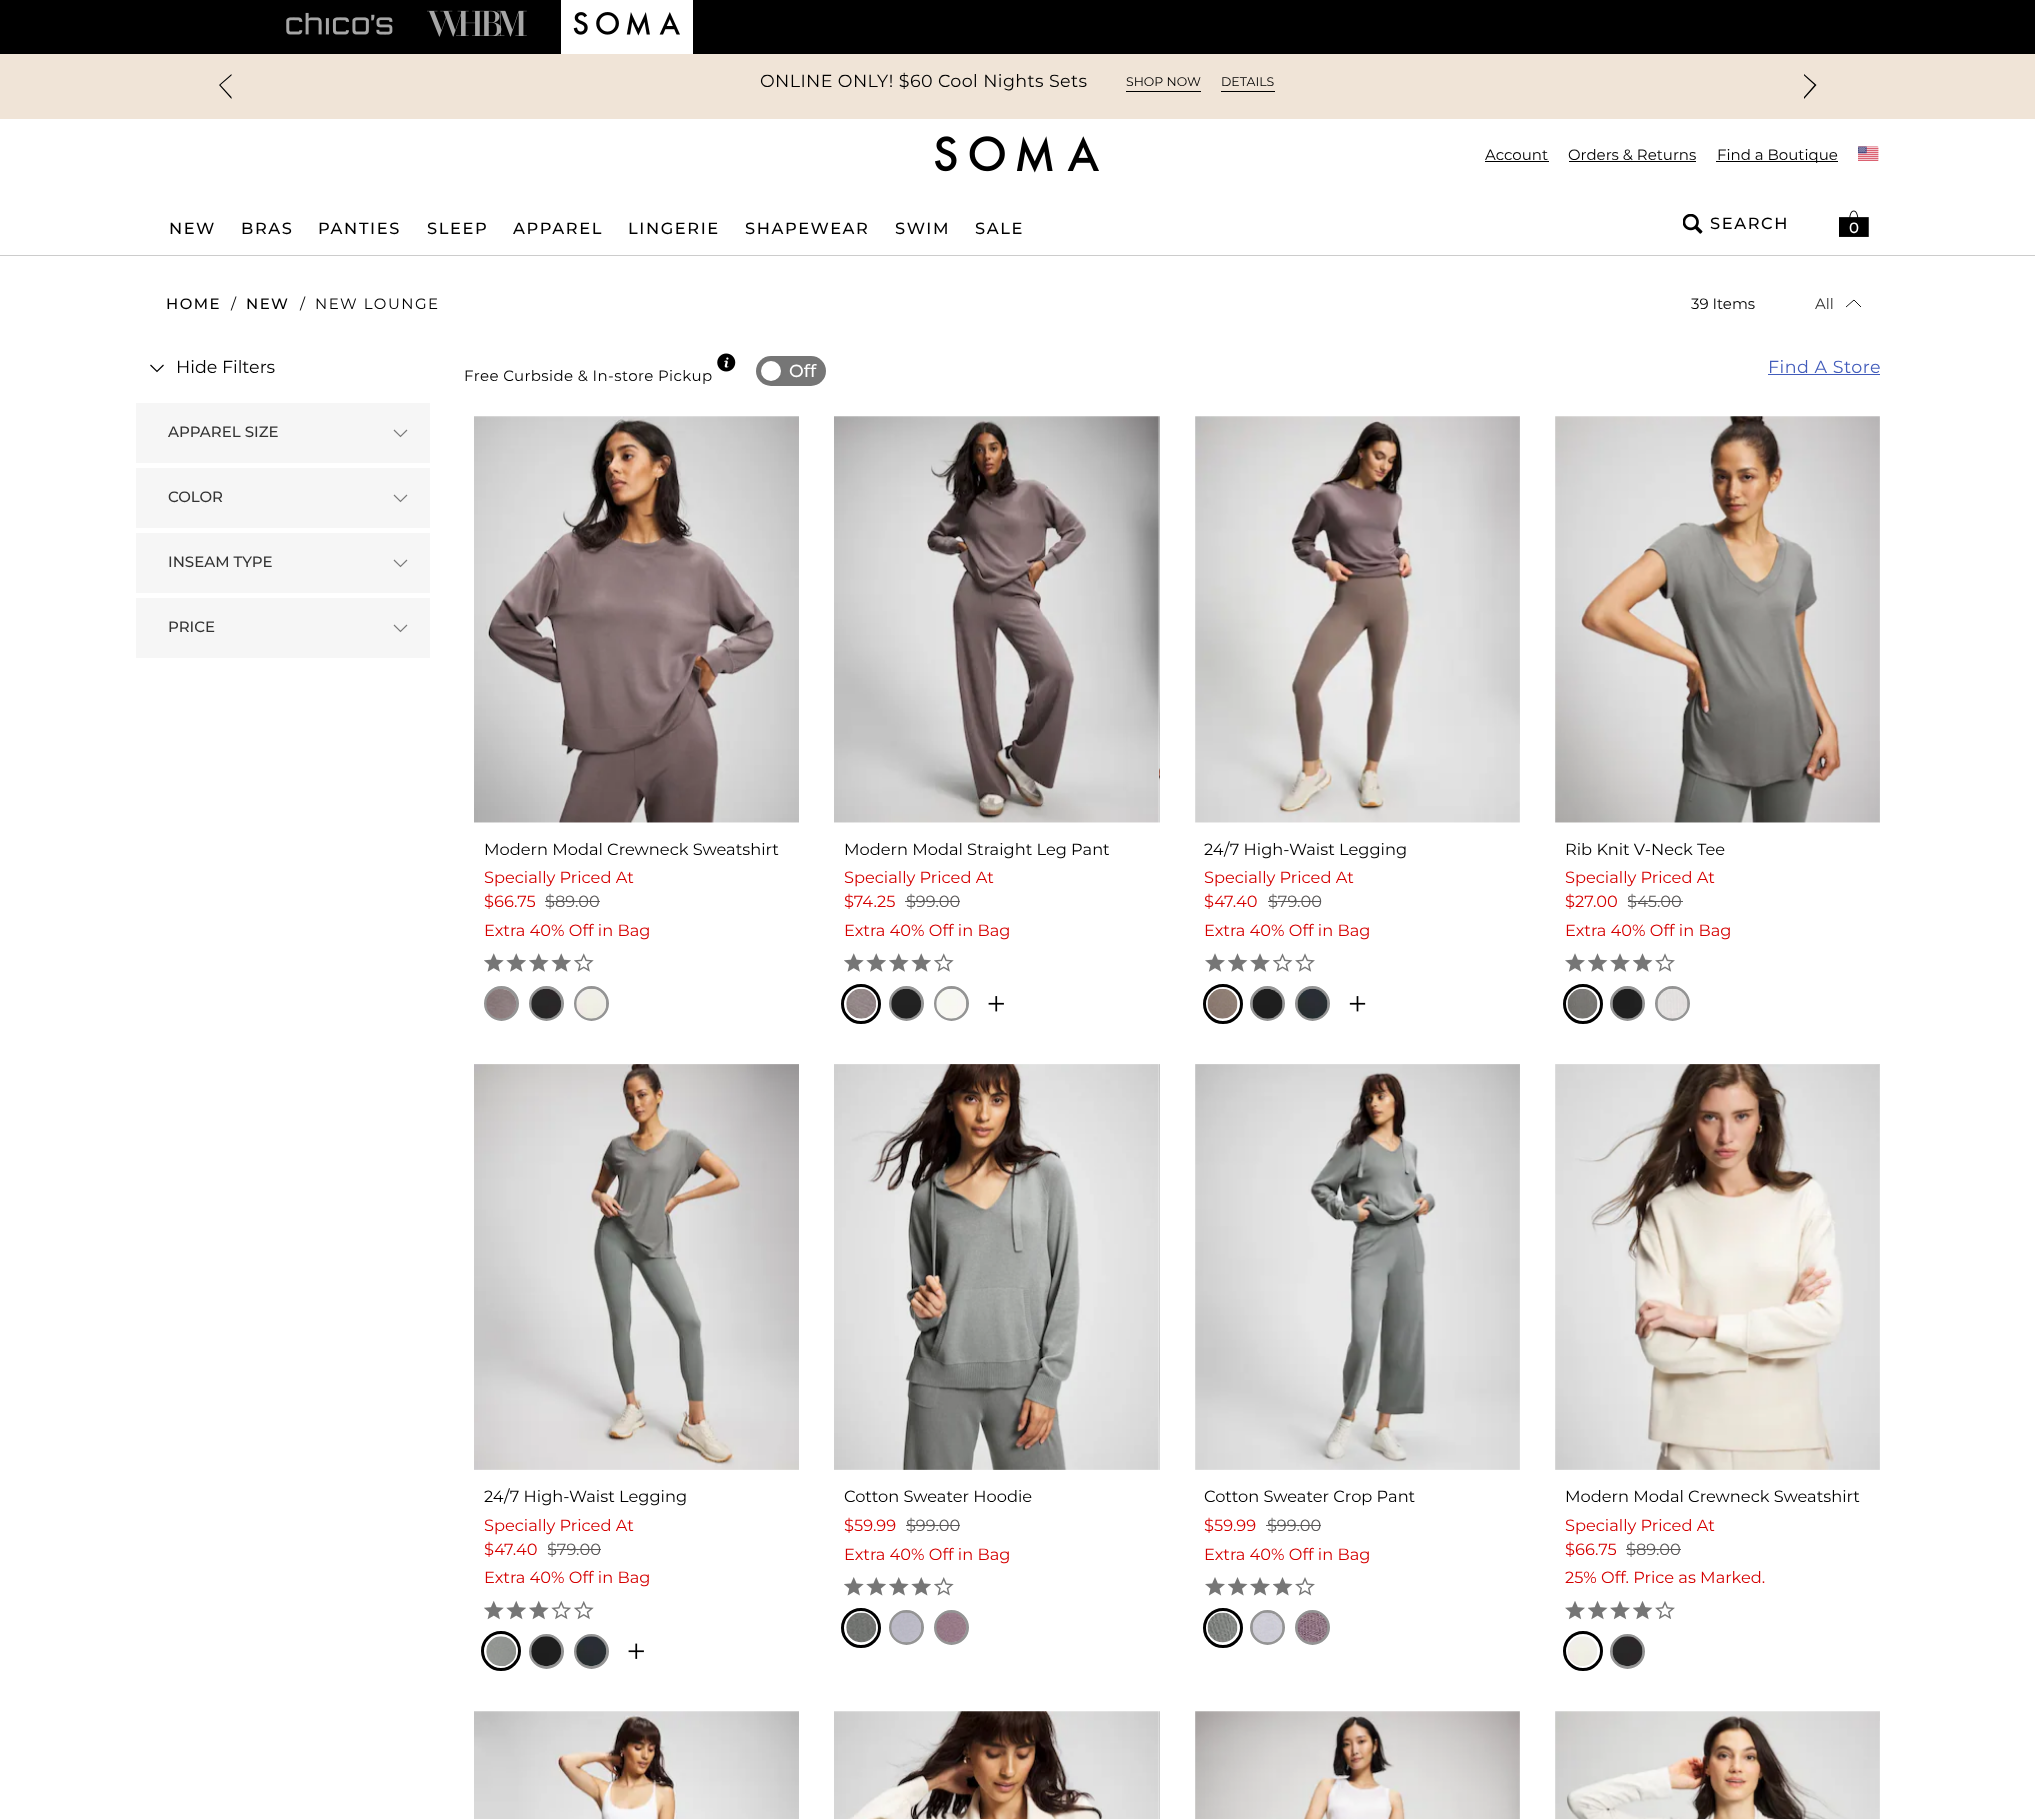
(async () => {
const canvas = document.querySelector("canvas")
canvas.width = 2035
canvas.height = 1819
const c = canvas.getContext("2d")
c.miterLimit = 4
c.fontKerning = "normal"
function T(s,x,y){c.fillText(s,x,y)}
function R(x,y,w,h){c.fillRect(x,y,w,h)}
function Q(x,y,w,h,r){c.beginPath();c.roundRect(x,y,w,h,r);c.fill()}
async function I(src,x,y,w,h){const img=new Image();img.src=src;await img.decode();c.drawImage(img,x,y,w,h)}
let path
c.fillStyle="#fff"
R(0,0,2035,1819)
c.fillStyle="#000"
R(0,0,2035,54)
await I("1.png",286,12,107,23)
await I("2.png",427,10,100,27)
c.fillStyle="#fff"
R(561,0,132,54)
await I("3.png",573,12,107,24)
c.fillStyle="#f0e4d7"
R(0,54,2035,65)
c.fillStyle="#000"
path = new Path2D("M231.5 74l-12.5 11l12.5 14v-2l-11-12l11-9.5z")
c.fill(path)
c.letterSpacing="0.4px"
c.font="17.5px Montserrat"
T("ONLINE ONLY! $60 Cool Nights Sets",760,87)
c.letterSpacing="0px"
c.font="12.5px Montserrat"
T("SHOP NOW",1126,86)
R(1126,91,75,1)
T("DETAILS",1221,86)
R(1221,91,54,1)
path = new Path2D("M1804 74l12.5 11l-12.5 14v-2l10.5-12l-10.5-9.5z")
c.fill(path)
c.fillStyle="#ccc"
R(0,255,2035,1)
await I("4.png",935,136,164,37)
c.font="15px Montserrat"
c.fillStyle="#000"
T("Account",1485,160)
R(1485,161,64,1)
T("Orders & Returns",1568,160)
R(1569,161,127,1)
R(1716,161,122,1)
T("Find a Boutique",1717,160)
await I("5.png",1858,146,21,15)
c.letterSpacing="1.6px"
c.font="500 16.25px Montserrat"
T("NEW",169,234)
T("BRAS",241,234)
T("PANTIES",318,234)
T("SLEEP",427,234)
T("APPAREL",513,234)
T("LINGERIE",628,234)
T("SHAPEWEAR",745,234)
T("SWIM",895,234)
T("SALE",975,234)
await I("6.png",1683,214,20,20)
T("SEARCH",1710,229)
await I("7.png",1839,210,30,27)
c.letterSpacing="0px"
c.font="500 15px Montserrat"
c.fillStyle="#fff"
T("0",1849,233)
c.letterSpacing="1.5px"
c.fillStyle="#000"
T("HOME",166,309)
c.letterSpacing="0px"
c.font="15px Montserrat"
T("/",231,309)
c.letterSpacing="1.5px"
c.font="500 15px Montserrat"
T("NEW",246,309)
c.letterSpacing="0px"
c.font="15px Montserrat"
T("/",300,309)
c.letterSpacing="1.5px"
T("NEW LOUNGE",315,309)
c.letterSpacing="0px"
T("39 Items",1691,309)
c.fillStyle="#343434"
T("All",1815,309)
path = new Path2D("M1846 307l8-7l7 7")
c.strokeStyle="#000"
c.lineWidth=0.9
c.stroke(path)
path = new Path2D("M150.5 365l6.5 6.5l6.5-6.5")
c.lineWidth=1.2
c.stroke(path)
c.font="17.5px Montserrat"
c.fillStyle="#000"
T("Hide Filters",176,373)
c.fillStyle="#f6f6f6"
R(136,403,294,60)
c.font="500 15px Montserrat"
c.fillStyle="#343434"
T("APPAREL SIZE",168,437)
path = new Path2D("M394 430l6.5 6.5l6.5-6.5")
c.strokeStyle="#7b7b7b"
c.stroke(path)
c.fillStyle="#f6f6f6"
R(136,468,294,60)
c.fillStyle="#343434"
T("COLOR",168,502)
path = new Path2D("M394 495l6.5 6.5l6.5-6.5")
c.stroke(path)
c.fillStyle="#f6f6f6"
R(136,533,294,60)
c.fillStyle="#343434"
T("INSEAM TYPE",168,567)
path = new Path2D("M394 560l6.5 6.5l6.5-6.5")
c.stroke(path)
c.fillStyle="#f6f6f6"
R(136,598,294,60)
c.fillStyle="#343434"
T("PRICE",168,632)
path = new Path2D("M394 625l6.5 6.5l6.5-6.5")
c.stroke(path)
await I("8.png",717,353,19,19)
c.letterSpacing="0.4px"
c.font="15px Montserrat"
c.fillStyle="#000"
T("Free Curbside & In-store Pickup",464,381)
c.fillStyle="#767676"
Q(756,356,70,30,15)
c.fillStyle="#0000001a"
c.filter="blur(2.5px)"
c.beginPath()
c.roundRect(764,366,15,15,7.5)
c.fill()
c.filter="none"
c.fillStyle="#fff"
c.beginPath()
c.arc(771,371,10,0,7)
c.fill()
c.letterSpacing="0px"
c.font="500 17.5px Montserrat"
T("Off",789,377)
c.letterSpacing="0.5px"
c.font="17.5px Montserrat"
c.fillStyle="#425cbb"
T("Find A Store",1768,373)
R(1768,374,112,1)
await I("9.png",474,416,325,407)
c.letterSpacing="0px"
c.font="16.25px Montserrat"
c.fillStyle="#000"
T("Modern Modal Crewneck Sweatshirt",484,855)
c.fillStyle="#d50000"
T("Specially Priced At",484,883)
T("$66.75",484,907)
c.fillStyle="#5a5858"
T("$89.00",545,907)
R(545,901,55,1)
c.fillStyle="#d50000"
T("Extra 40% Off in Bag",484,936)
await I("10.png",484,953,20,19)
await I("11.png",506,953,20,19)
await I("10.png",529,953,20,19)
await I("12.png",551,953,20,19)
await I("13.png",574,953,20,19)
c.beginPath()
c.arc(501.5,1003.5,16,0,7)
c.strokeStyle="#949494"
c.lineWidth=3
c.stroke()
await I("14.png",486,989,30,30)
c.beginPath()
c.arc(546.5,1003.5,16,0,7)
c.stroke()
await I("15.png",531,988,31,31)
c.beginPath()
c.arc(591.5,1003.5,16,0,7)
c.stroke()
await I("16.png",576,988,31,31)
await I("17.png",834,416,325,407)
await I("18.png",1159,416,1,407)
c.fillStyle="#000"
T("Modern Modal Straight Leg Pant",844,855)
c.fillStyle="#d50000"
T("Specially Priced At",844,883)
T("$74.25",844,907)
c.fillStyle="#5a5858"
T("$99.00",906,907)
R(905,901,55,1)
c.fillStyle="#d50000"
T("Extra 40% Off in Bag",844,936)
await I("10.png",844,953,20,19)
await I("11.png",866,953,20,19)
await I("10.png",889,953,20,19)
await I("11.png",911,953,20,19)
await I("13.png",934,953,20,19)
c.beginPath()
c.arc(861,1004,18.5,0,7)
c.strokeStyle="#000"
c.stroke()
await I("19.png",846,988,31,31)
c.beginPath()
c.arc(906.5,1003.5,16,0,7)
c.strokeStyle="#949494"
c.stroke()
await I("20.png",891,988,31,31)
c.beginPath()
c.arc(951.5,1003.5,16,0,7)
c.stroke()
await I("21.png",936,988,31,31)
await I("22.png",988,996,16,16)
await I("23.png",1195,416,325,407)
await I("24.png",1519,416,1,328)
c.fillStyle="#000"
T("24/7 High-Waist Legging",1204,855)
c.fillStyle="#d50000"
T("Specially Priced At",1204,883)
T("$47.40",1204,907)
c.fillStyle="#5a5858"
T("$79.00",1268,907)
R(1268,901,53,1)
c.fillStyle="#d50000"
T("Extra 40% Off in Bag",1204,936)
await I("25.png",1205,953,20,19)
await I("26.png",1228,953,20,19)
await I("25.png",1250,953,20,19)
await I("27.png",1273,953,20,19)
await I("28.png",1295,953,20,19)
c.beginPath()
c.arc(1223,1004,18.5,0,7)
c.strokeStyle="#000"
c.stroke()
await I("29.png",1207,988,31,31)
c.beginPath()
c.arc(1267.5,1003.5,16,0,7)
c.strokeStyle="#949494"
c.stroke()
await I("30.png",1252,988,31,31)
c.beginPath()
c.arc(1312.5,1003.5,16,0,7)
c.stroke()
await I("31.png",1297,988,31,31)
await I("32.png",1349,996,17,16)
await I("33.png",1555,416,325,407)
await I("34.png",1879,741,1,82)
c.fillStyle="#000"
T("Rib Knit V-Neck Tee",1565,855)
c.fillStyle="#d50000"
T("Specially Priced At",1565,883)
T("$27.00",1565,907)
c.fillStyle="#5a5858"
T("$45.00",1627,907)
R(1628,901,55,1)
c.fillStyle="#d50000"
T("Extra 40% Off in Bag",1565,936)
await I("25.png",1565,953,20,19)
await I("26.png",1588,953,20,19)
await I("25.png",1610,953,20,19)
await I("26.png",1633,953,20,19)
await I("28.png",1655,953,20,19)
c.beginPath()
c.arc(1583,1004,18.5,0,7)
c.strokeStyle="#000"
c.stroke()
await I("35.png",1567,988,31,31)
c.beginPath()
c.arc(1627.5,1003.5,16,0,7)
c.strokeStyle="#949494"
c.stroke()
await I("36.png",1612,988,31,31)
c.beginPath()
c.arc(1672.5,1003.5,16,0,7)
c.stroke()
await I("37.png",1657,988,31,31)
await I("38.png",474,1064,325,406)
c.fillStyle="#000"
T("24/7 High-Waist Legging",484,1502)
c.fillStyle="#d50000"
T("Specially Priced At",484,1531)
T("$47.40",484,1555)
c.fillStyle="#5a5858"
T("$79.00",547,1555)
R(548,1549,53,1)
c.fillStyle="#d50000"
T("Extra 40% Off in Bag",484,1583)
await I("39.png",484,1600,20,20)
await I("40.png",506,1600,20,20)
await I("39.png",529,1600,20,20)
await I("41.png",551,1601,20,19)
await I("42.png",574,1601,20,19)
c.beginPath()
c.arc(501,1651,18.5,0,7)
c.strokeStyle="#000"
c.stroke()
await I("43.png",486,1636,31,31)
c.beginPath()
c.arc(546.5,1651.5,16,0,7)
c.strokeStyle="#949494"
c.stroke()
await I("44.png",531,1636,31,31)
c.beginPath()
c.arc(591.5,1651.5,16,0,7)
c.stroke()
await I("45.png",576,1636,31,31)
await I("46.png",628,1643,16,16)
await I("47.png",834,1064,325,406)
await I("48.png",1159,1064,1,406)
c.fillStyle="#000"
T("Cotton Sweater Hoodie",844,1502)
c.fillStyle="#d50000"
T("$59.99",844,1531)
c.fillStyle="#5a5858"
T("$99.00",906,1531)
R(906,1525,54,1)
c.fillStyle="#d50000"
T("Extra 40% Off in Bag",844,1560)
await I("49.png",844,1577,20,19)
await I("50.png",866,1577,20,19)
await I("49.png",889,1577,20,19)
await I("50.png",911,1577,20,19)
await I("51.png",934,1577,20,19)
c.beginPath()
c.arc(861,1628,18.5,0,7)
c.strokeStyle="#000"
c.stroke()
await I("52.png",846,1612,31,31)
c.beginPath()
c.arc(906.5,1627.5,16,0,7)
c.strokeStyle="#949494"
c.stroke()
await I("53.png",891,1612,30,31)
c.beginPath()
c.arc(951.5,1627.5,16,0,7)
c.stroke()
await I("54.png",936,1612,30,31)
await I("55.png",1195,1064,325,406)
await I("56.png",1519,1064,1,76)
c.fillStyle="#000"
T("Cotton Sweater Crop Pant",1204,1502)
c.fillStyle="#d50000"
T("$59.99",1204,1531)
c.fillStyle="#5a5858"
T("$99.00",1267,1531)
R(1266,1525,55,1)
c.fillStyle="#d50000"
T("Extra 40% Off in Bag",1204,1560)
await I("57.png",1205,1577,20,19)
await I("58.png",1228,1577,20,19)
await I("57.png",1250,1577,20,19)
await I("58.png",1273,1577,20,19)
await I("59.png",1295,1577,20,19)
c.beginPath()
c.arc(1223,1628,18.5,0,7)
c.strokeStyle="#000"
c.stroke()
await I("60.png",1207,1612,31,31)
c.beginPath()
c.arc(1267.5,1627.5,16,0,7)
c.strokeStyle="#949494"
c.stroke()
await I("61.png",1252,1612,31,31)
c.beginPath()
c.arc(1312.5,1627.5,16,0,7)
c.stroke()
await I("62.png",1297,1612,31,31)
await I("63.png",1555,1064,325,406)
c.fillStyle="#d5d5d5"
R(1879,1064,1,1)
c.fillStyle="#000"
T("Modern Modal Crewneck Sweatshirt",1565,1502)
c.fillStyle="#d50000"
T("Specially Priced At",1565,1531)
T("$66.75",1565,1555)
c.fillStyle="#5a5858"
T("$89.00",1626,1555)
R(1626,1549,55,1)
c.fillStyle="#d50000"
T("25% Off. Price as Marked.",1565,1583)
await I("64.png",1565,1601,20,19)
await I("65.png",1588,1600,20,20)
await I("64.png",1610,1601,20,19)
await I("66.png",1633,1601,20,19)
await I("67.png",1655,1601,20,18)
c.beginPath()
c.arc(1583,1651,18.5,0,7)
c.strokeStyle="#000"
c.stroke()
await I("68.png",1567,1636,31,30)
c.beginPath()
c.arc(1627.5,1651.5,16,0,7)
c.strokeStyle="#949494"
c.stroke()
await I("69.png",1612,1636,31,31)
await I("70.png",474,1711,325,108)
await I("71.png",834,1711,325,108)
await I("72.png",1159,1711,1,108)
await I("73.png",1195,1711,325,108)
await I("74.png",1555,1711,325,108)
await I("75.png",1879,1711,1,10)
})()
